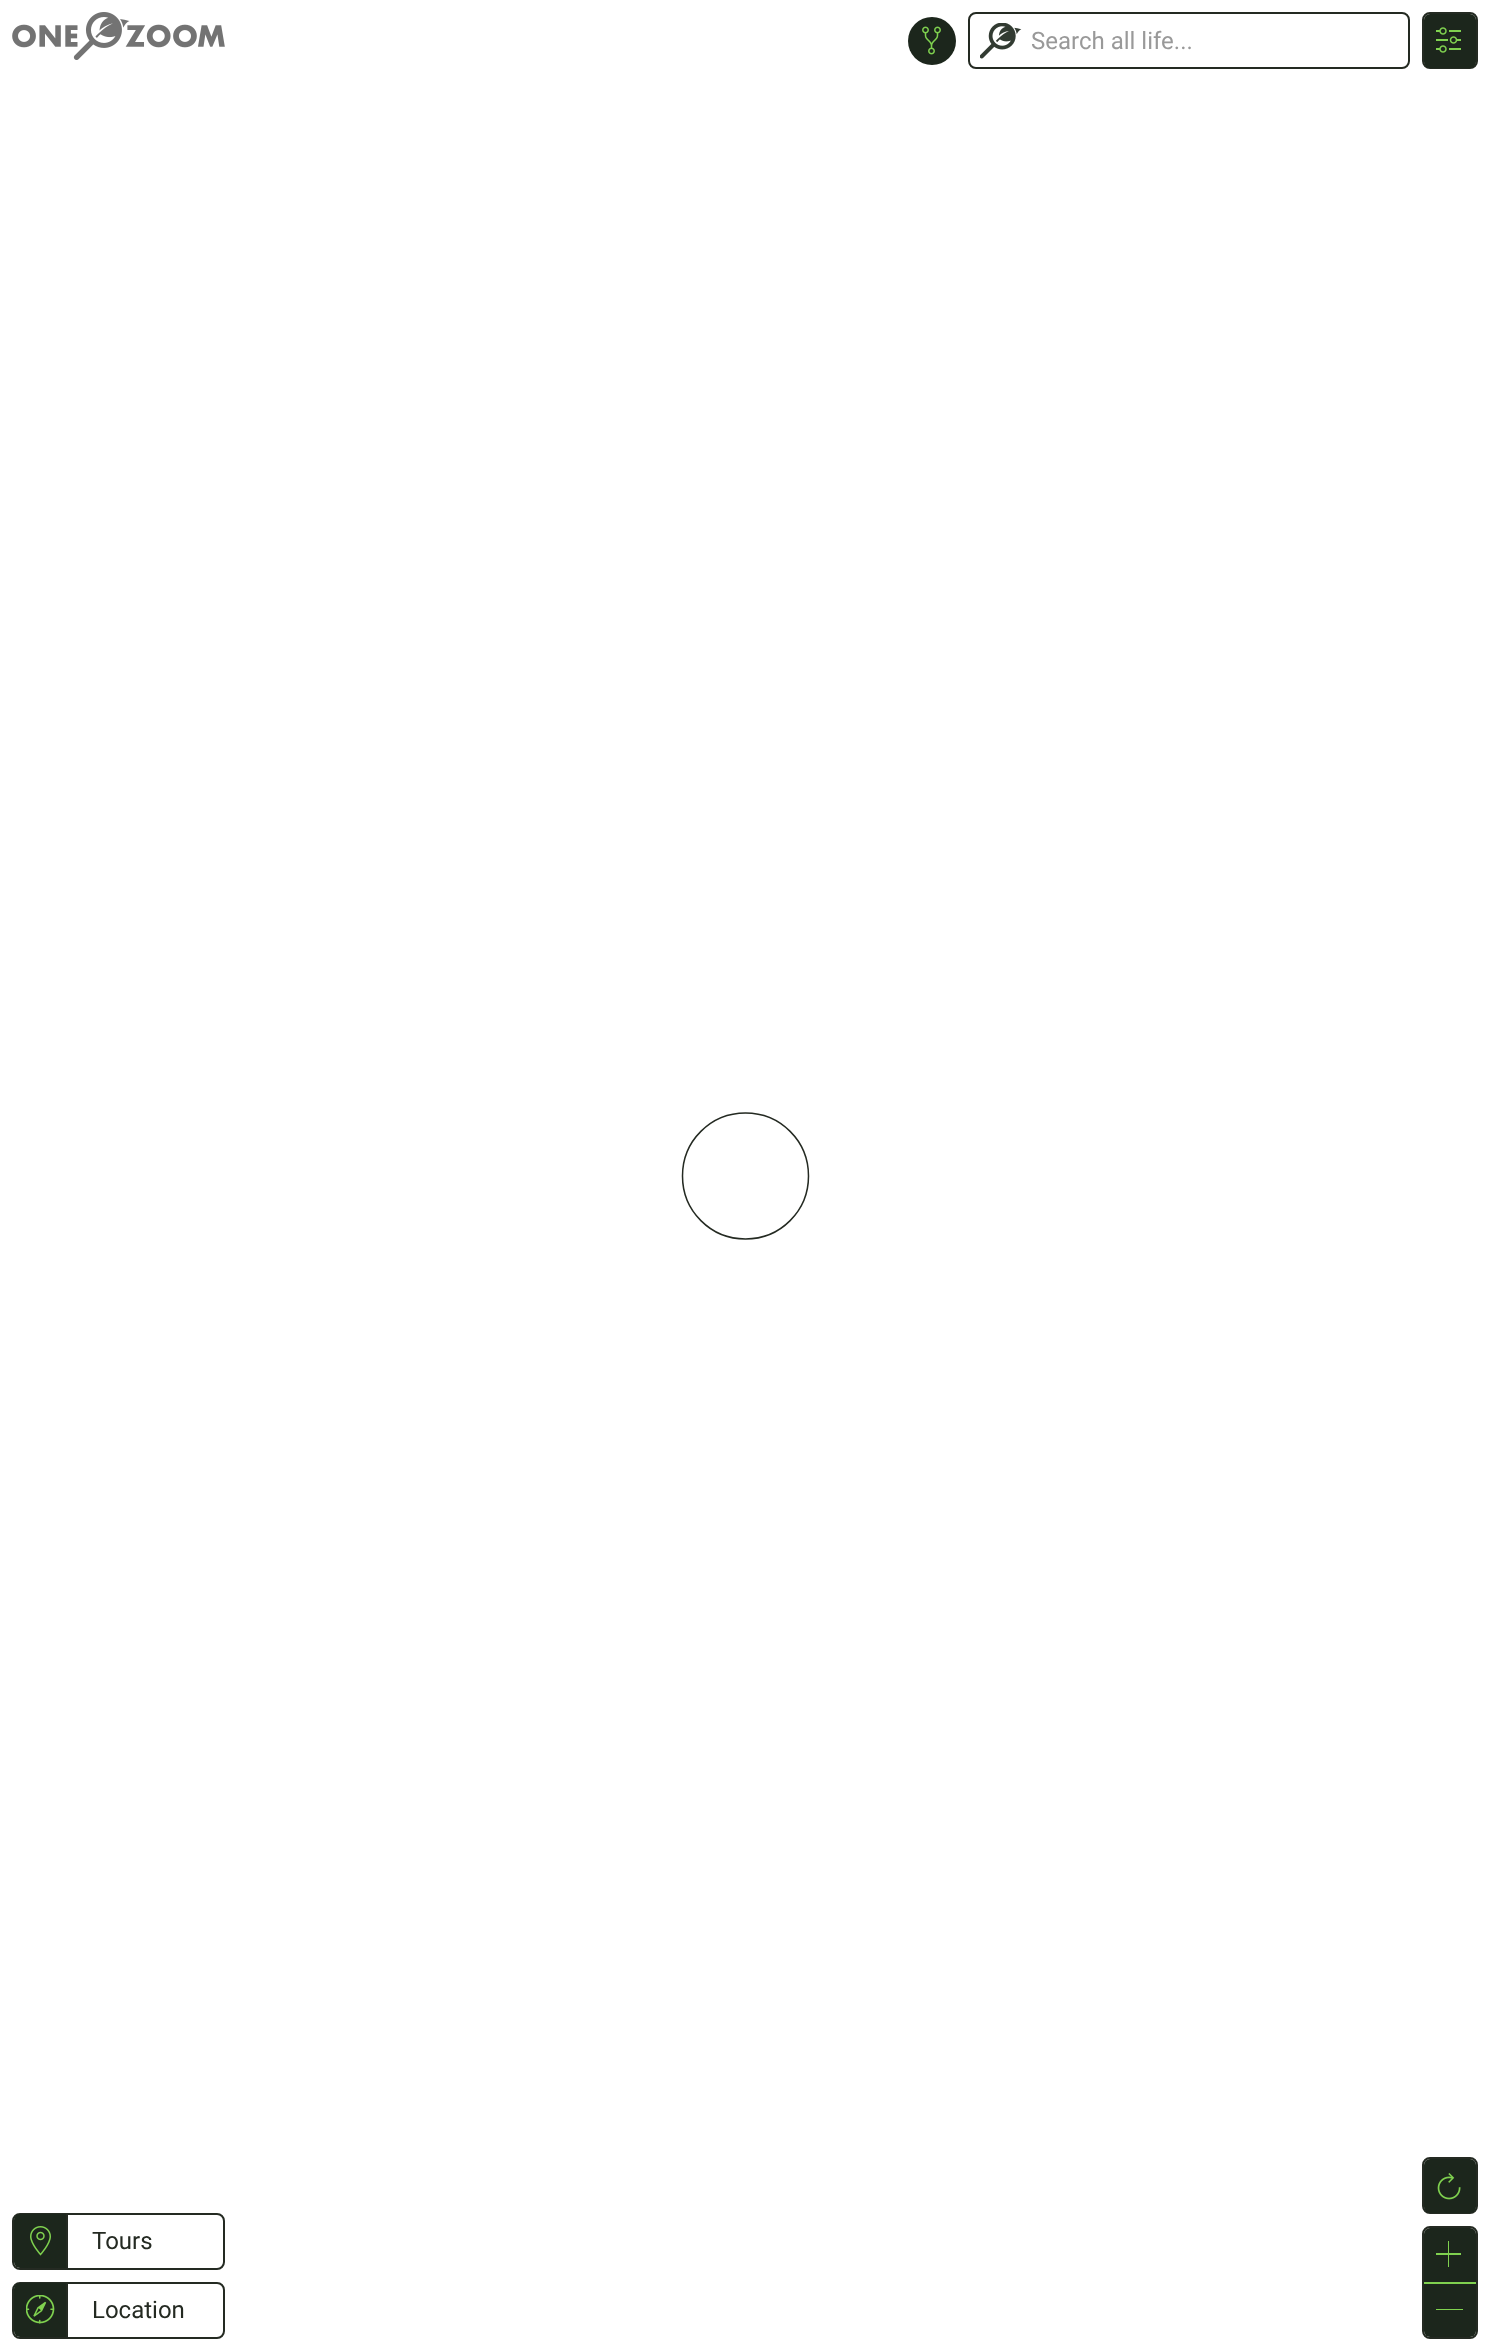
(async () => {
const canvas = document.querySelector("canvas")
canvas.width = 1489
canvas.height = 2350
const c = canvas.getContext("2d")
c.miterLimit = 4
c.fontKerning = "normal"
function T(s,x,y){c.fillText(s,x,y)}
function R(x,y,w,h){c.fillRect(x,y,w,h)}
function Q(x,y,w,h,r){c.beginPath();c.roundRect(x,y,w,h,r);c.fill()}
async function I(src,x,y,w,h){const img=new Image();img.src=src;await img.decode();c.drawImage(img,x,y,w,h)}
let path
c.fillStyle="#fff"
R(0,0,1489,2350)
await I("1.png",12,12,213,48)
c.fillStyle="#1c261c"
c.beginPath()
c.arc(932,41,24,0,7)
c.fill()
await I("2.png",922,26,19,29)
c.beginPath()
c.roundRect(969,13,440,55,7)
c.strokeStyle="#242a22"
c.lineWidth=2
c.stroke()
await I("3.png",980,23,42,36)
c.font="24px Roboto"
c.fillStyle="#999"
T("Search all life...",1031,49)
c.beginPath()
c.roundRect(1423,13,54,55,7)
c.stroke()
c.fillStyle="#1c261c"
Q(1424,14,52,54,6)
await I("4.png",1436,27,25,26)
path = new Path2D("M745.5 1113c35 0 63 28 63 63c0 35-28 63-63 63c-35 0-63-28-63-63c0-35 28-63 63-63")
c.lineWidth=1.5
c.lineCap="round"
c.stroke(path)
c.beginPath()
c.roundRect(13,2214,211,55,7)
c.lineWidth=2
c.stroke()
c.beginPath()
c.roundRect(14,2214,54,54,[6,0,0,6])
c.fill()
c.fillStyle="#242a22"
R(66,2214,2,54)
await I("5.png",30,2226,21,30)
T("Tours",92,2249)
c.beginPath()
c.roundRect(13,2283,211,55,7)
c.stroke()
c.fillStyle="#1c261c"
c.beginPath()
c.roundRect(14,2283,54,54,[6,0,0,6])
c.fill()
c.fillStyle="#242a22"
R(66,2283,2,54)
await I("6.png",26,2295,29,29)
T("Location",92,2318)
c.beginPath()
c.roundRect(1423,2158,54,55,7)
c.stroke()
c.fillStyle="#1c261c"
Q(1424,2159,52,54,6)
await I("7.png",1437,2173,24,27)
c.beginPath()
c.roundRect(1423,2227,54,111,7)
c.stroke()
c.beginPath()
c.roundRect(1424,2228,52,54,[6,6,0,0])
c.fill()
c.fillStyle="#7fd14f"
R(1448,2241,1,26)
R(1436,2253,25,2)
c.fillStyle="#1c261c"
c.beginPath()
c.roundRect(1424,2282,52,55,[0,0,6,6])
c.fill()
c.fillStyle="#7fd14f"
R(1424,2282,52,2)
R(1436,2309,27,1)
})()
